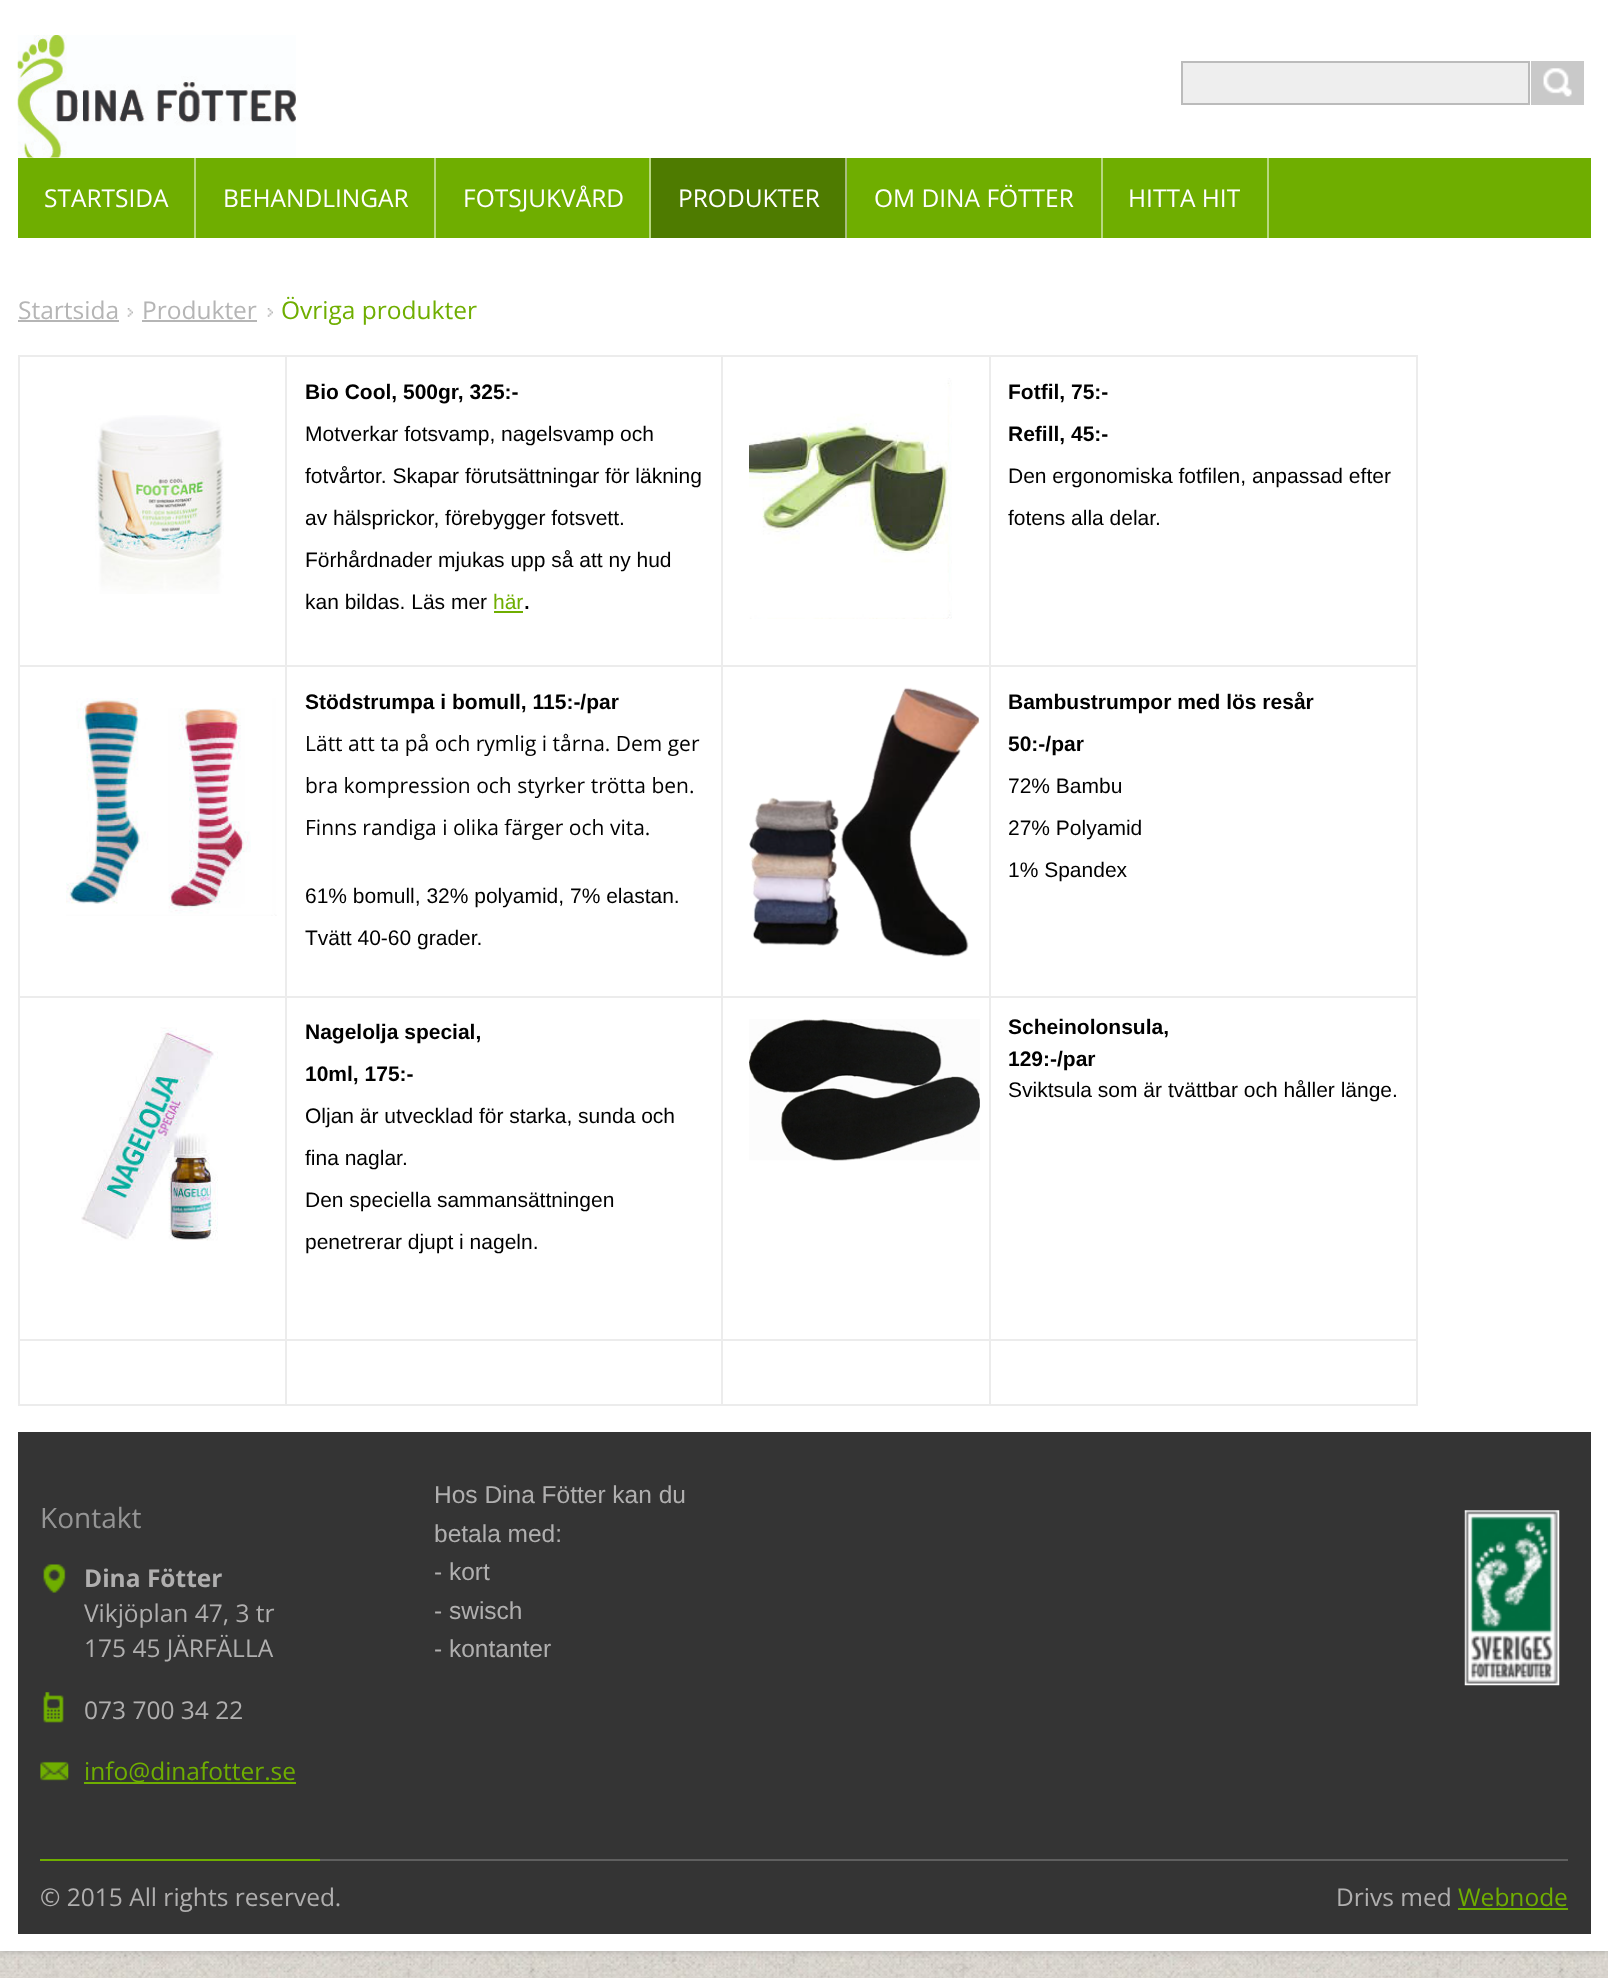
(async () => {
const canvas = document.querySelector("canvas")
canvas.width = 1608
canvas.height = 1978
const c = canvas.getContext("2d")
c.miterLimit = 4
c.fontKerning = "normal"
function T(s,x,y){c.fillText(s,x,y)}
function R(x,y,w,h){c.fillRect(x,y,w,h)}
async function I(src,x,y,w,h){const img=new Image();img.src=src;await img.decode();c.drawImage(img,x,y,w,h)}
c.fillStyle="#fff"
R(0,0,1608,1978)
await I("1.png",0,1951,1608,27)
c.fillStyle="#989898bf"
c.filter="blur(3.5px)"
c.beginPath()
c.rect(0,0,1608,1951)
c.fill()
c.filter="none"
c.fillStyle="#fff"
R(0,0,1608,1951)
await I("2.png",17,35,279,123)
c.fillStyle="#eee"
c.beginPath()
c.rect(1182,62,347,42)
c.fill()
c.strokeStyle="#bbb"
c.lineWidth=2
c.stroke()
c.fillStyle="#c9c9c9"
R(1531,61,53,44)
await I("3.png",1543,68,29,29)
c.fillStyle="#6fae00"
R(18,158,1573,80)
c.fillStyle="#b7d780"
R(194,158,2,80)
c.font="24.5px Open Sans"
c.fillStyle="#fff"
T("STARTSIDA",44,207)
c.fillStyle="#b7d780"
R(434,158,2,80)
c.fillStyle="#fff"
T("BEHANDLINGAR",223,207)
c.fillStyle="#b7d780"
R(649,158,2,80)
c.fillStyle="#fff"
T("FOTSJUKVÅRD",463,207)
c.fillStyle="#4e7b00"
R(651,158,194,80)
c.fillStyle="#a7bd80"
R(845,158,2,80)
c.fillStyle="#fff"
T("PRODUKTER",678,207)
c.fillStyle="#b7d780"
R(1101,158,2,80)
c.fillStyle="#fff"
T("OM DINA FÖTTER",874,207)
c.fillStyle="#b7d780"
R(1267,158,2,80)
c.fillStyle="#fff"
T("HITTA HIT",1128,207)
c.fillStyle="#b5b5b5"
T("Startsida",18,319)
R(18,320,101,2)
await I("4.png",127,308,6,9)
T("Produkter",142,319)
R(142,320,115,2)
await I("4.png",267,308,6,9)
c.fillStyle="#6fae00"
T("Övriga produkter",281,319)
c.fillStyle="#ececec"
R(18,355,1400,2)
R(1416,355,2,1050)
R(18,1404,1400,2)
R(18,355,2,1050)
await I("5.png",95,415,129,179)
R(989,665,429,2)
R(989,996,429,2)
R(989,1339,429,2)
R(989,1339,2,66)
R(721,1339,270,2)
R(989,996,2,345)
R(721,996,270,2)
R(989,665,2,333)
R(721,665,270,2)
R(721,1339,2,66)
R(285,1339,438,2)
R(721,996,2,345)
R(285,996,438,2)
R(721,665,2,333)
R(285,665,438,2)
R(285,1339,2,66)
R(18,1339,269,2)
R(285,996,2,345)
R(18,996,269,2)
R(285,665,2,333)
R(18,665,269,2)
R(285,355,2,312)
c.font="bold 21px Liberation Sans"
c.fillStyle="#000"
T("Bio Cool, 500gr, 325:-",305,399)
c.font="21px Liberation Sans"
T("Motverkar fotsvamp, nagelsvamp och",305,441)
T("fotvårtor. Skapar förutsättningar för läkning",305,483)
T("av hälsprickor, förebygger fotsvett.",305,525)
T("Förhårdnader mjukas upp så att ny hud",305,567)
T("kan bildas. Läs mer",305,609)
c.fillStyle="#6fae00"
T("här",493,609)
c.font="28px Liberation Sans"
c.fillStyle="#000"
T(".",523,609)
c.fillStyle="#6fae00"
R(494,611,29,2)
c.fillStyle="#ececec"
R(721,355,2,312)
await I("6.png",749,378,203,241)
R(989,355,2,312)
c.font="bold 21px Liberation Sans"
c.fillStyle="#000"
T("Fotfil, 75:-",1008,399)
T("Refill, 45:-",1008,441)
c.font="21px Liberation Sans"
T("Den ergonomiska fotfilen, anpassad efter",1008,483)
T("fotens alla delar.",1008,525)
await I("7.png",66,698,211,218)
c.font="bold 21px Liberation Sans"
T("Stödstrumpa i bomull, 115:-/par",305,709)
c.font="21px Open Sans"
T("Lätt att ta på och rymlig i tårna. Dem ger",305,751)
T("bra kompression och styrker trötta ben.",305,793)
T("Finns randiga i olika färger och vita.",305,835)
c.font="21px Liberation Sans"
T("61% bomull, 32% polyamid, 7% elastan.",305,903)
T("Tvätt 40-60 grader.",305,945)
await I("8.png",749,687,231,270)
c.font="bold 21px Liberation Sans"
T("Bambustrumpor med lös resår",1008,709)
T("50:-/par",1008,751)
c.font="21px Liberation Sans"
T("72% Bambu",1008,793)
T("27% Polyamid",1008,835)
T("1% Spandex",1008,877)
await I("9.png",81,1027,137,214)
c.font="bold 21px Liberation Sans"
T("Nagelolja special,",305,1039)
T("10ml, 175:-",305,1081)
c.font="21px Liberation Sans"
T("Oljan är utvecklad för starka, sunda och",305,1123)
T("fina naglar.",305,1165)
T("Den speciella sammansättningen",305,1207)
T("penetrerar djupt i nageln.",305,1249)
await I("10.png",749,1019,231,142)
c.font="bold 21px Liberation Sans"
T("Scheinolonsula,",1008,1034)
T("129:-/par",1008,1066)
c.font="21px Liberation Sans"
T("Sviktsula som är tvättbar och håller länge.",1008,1097)
c.fillStyle="#343434"
R(18,1432,1573,502)
c.font="28px Open Sans"
c.fillStyle="#959595"
T("Kontakt",40,1528)
await I("11.png",43,1564,23,29)
c.font="bold 24.5px Open Sans"
c.fillStyle="#b0afaf"
T("Dina Fötter",84,1587)
c.font="24.5px Open Sans"
T("Vikjöplan 47, 3 tr",84,1622)
T("175 45 JÄRFÄLLA",84,1657)
await I("12.png",43,1692,21,31)
T("073 700 34 22",84,1719)
await I("13.png",40,1761,29,20)
c.fillStyle="#6fae00"
R(84,1782,212,2)
T("info@dinafotter.se",84,1780)
c.font="24.5px Liberation Sans"
c.fillStyle="#b0afaf"
T("Hos Dina Fötter kan du",434,1503)
T("betala med:",434,1542)
T("- kort",434,1580)
T("- swisch",434,1619)
T("- kontanter",434,1657)
await I("14.png",1464,1510,96,176)
c.fillStyle="#5f5f5f"
R(320,1859,1248,2)
c.fillStyle="#6fae00"
R(40,1859,280,2)
c.font="24.5px Open Sans"
c.fillStyle="#b0afaf"
T("© 2015 All rights reserved.",40,1906)
T("Drivs med",1336,1906)
c.fillStyle="#6fae00"
T("Webnode",1458,1906)
R(1458,1908,110,2)
})()
